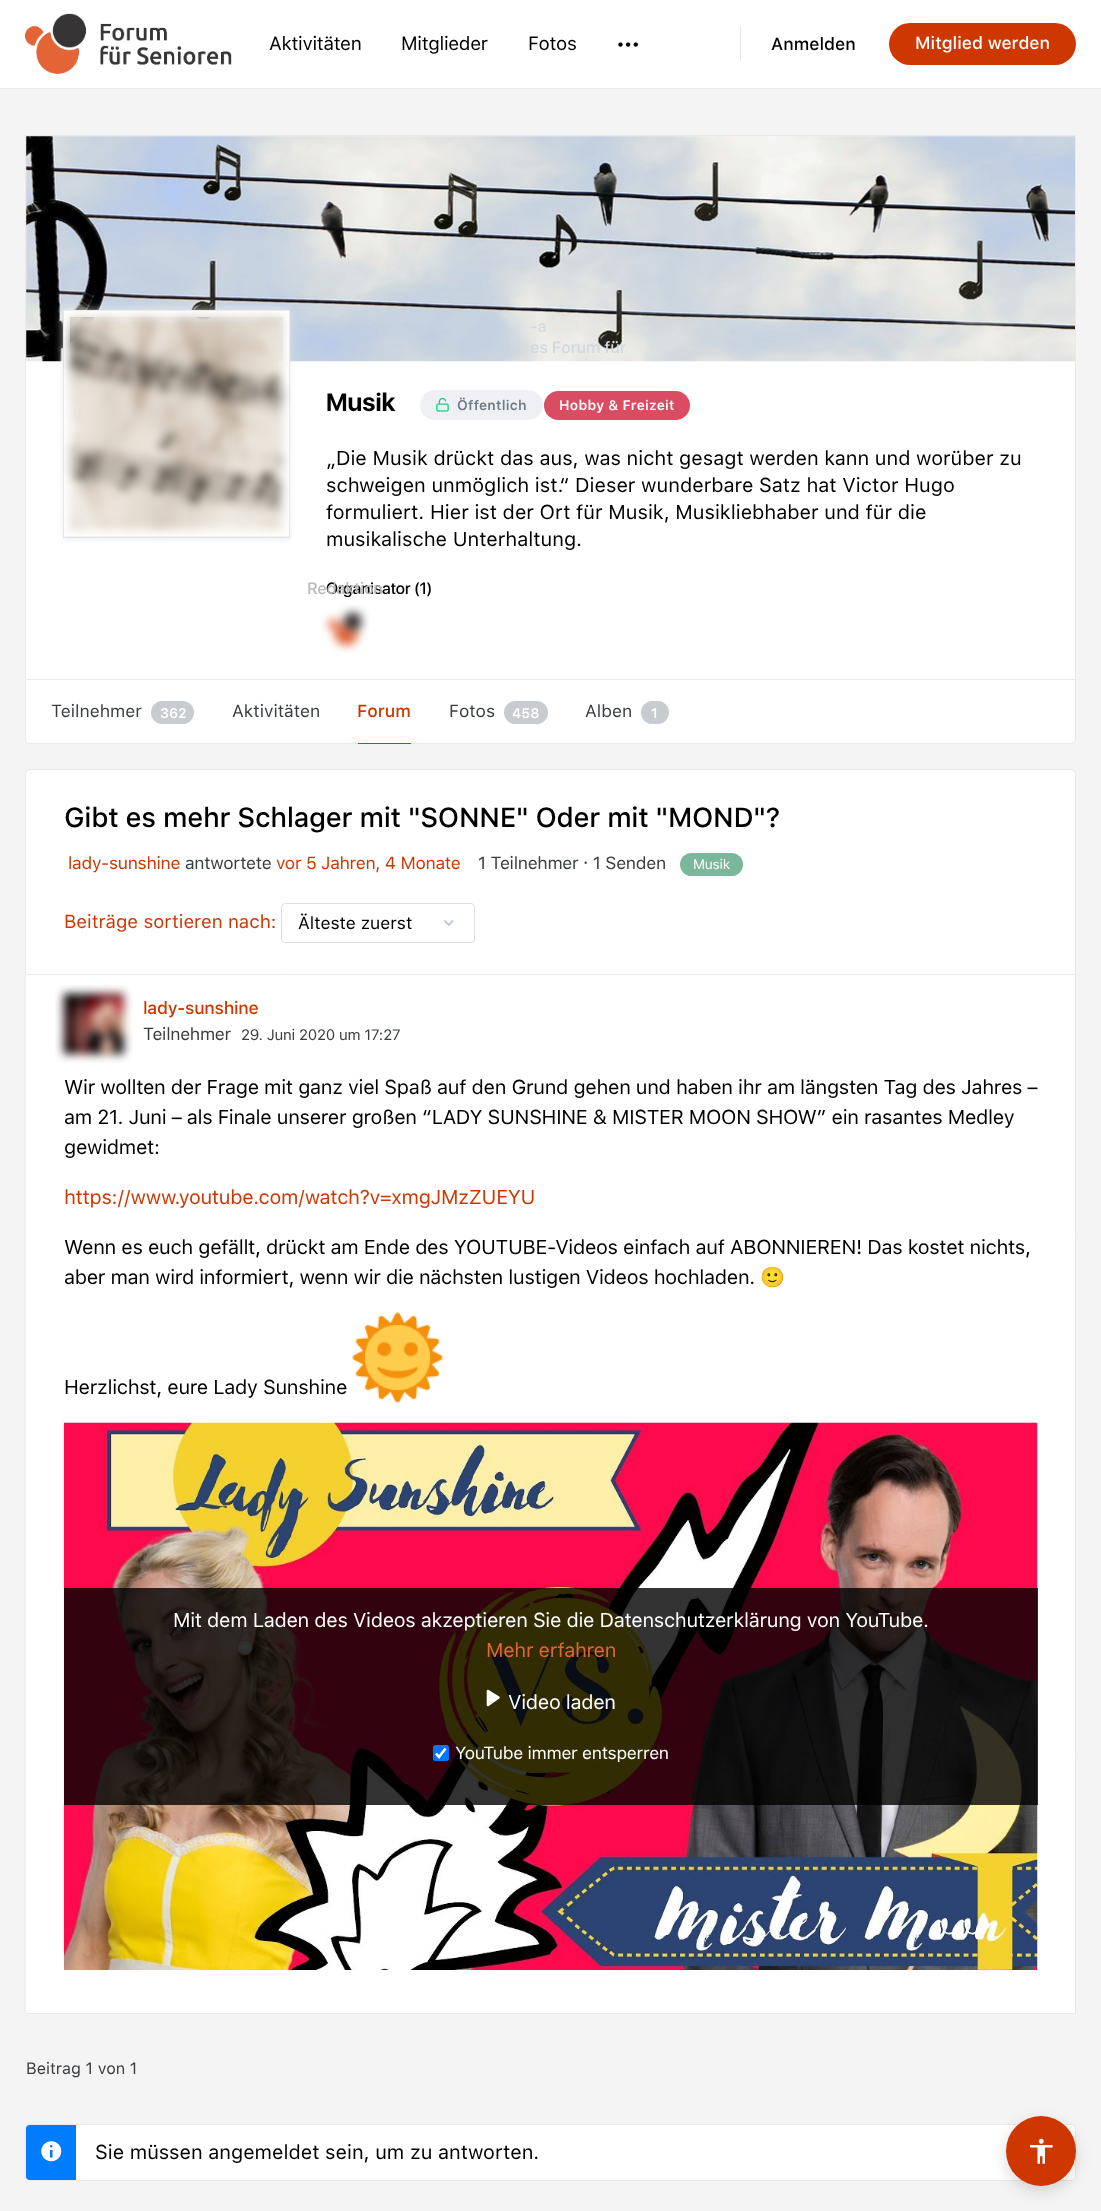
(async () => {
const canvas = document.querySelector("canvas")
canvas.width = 1101
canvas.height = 2211
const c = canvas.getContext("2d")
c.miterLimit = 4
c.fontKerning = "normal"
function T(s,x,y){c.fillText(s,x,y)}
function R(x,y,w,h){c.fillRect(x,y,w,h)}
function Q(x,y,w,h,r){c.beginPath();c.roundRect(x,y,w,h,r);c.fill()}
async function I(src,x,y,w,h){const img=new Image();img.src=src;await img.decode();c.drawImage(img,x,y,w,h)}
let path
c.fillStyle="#f4f4f4"
R(0,0,1101,2211)
c.fillStyle="#ececee"
R(0,88,1101,1)
c.fillStyle="#fff"
R(0,0,1101,88)
await I("1.png",25,13,207,61)
c.letterSpacing="-0.3px"
c.font="19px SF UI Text"
c.fillStyle="#000"
T("Aktivitäten",269,50)
T("Mitglieder",401,50)
T("Fotos",528,50)
await I("2.png",618,42,20,5)
c.fillStyle="#e6e6e6"
R(740,26,1,35)
c.letterSpacing="0px"
c.font="500 17.5px SF UI Text"
c.fillStyle="#000"
T("Anmelden",771,50)
c.fillStyle="#cf3700"
Q(889,23,187,42,21)
c.fillStyle="#fff"
T("Mitglied werden",915,49)
R(26,361,1049,318)
c.beginPath()
c.roundRect(25.5,679.5,1050,64,[0,0,4.5,4.5])
c.fill()
c.strokeStyle="#ebe9e6"
c.stroke()
c.strokeRect(25.5,135.5,1050,544)
c.fillStyle="#fbf7f1"
R(26,136,1049,225)
await I("3.png",26,136,1049,226)
c.strokeStyle="#e7e9ec"
c.strokeRect(63.5,310.5,226,227)
c.save()
path = new Path2D("M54 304h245v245h-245zm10 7h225v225h-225z")
c.clip(path,"evenodd")
c.fillStyle="#122b461f"
c.filter="blur(3px)"
c.beginPath()
c.rect(64,314,225,225)
c.fill()
c.filter="none"
c.restore()
c.fillStyle="#ffffffcc"
c.filter="blur(5px)"
c.beginPath()
c.rect(64,311,225,225)
c.fill()
c.filter="none"
c.strokeStyle="#fff"
c.lineWidth=6
c.strokeRect(67,314,219,219)
await I("4.png",62,309,229,228)
c.font="bold 25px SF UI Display"
c.fillStyle="#000"
T("Musik",326,411)
c.letterSpacing="-0.3px"
c.font="500 16.25px SF UI Text"
c.fillStyle="#d1d8e0"
T("-a",530,332)
T("es Forum für",530,353)
c.fillStyle="#eef0f3"
Q(420,390,123,30,15)
await I("5.png",436,397,13,15)
c.letterSpacing="0.25px"
c.font="600 13.75px SF UI Text"
c.fillStyle="#6d7a88"
T("Öffentlich",457,410)
c.fillStyle="#d94c61"
Q(544,391,146,29,14.5)
c.fillStyle="#fff"
T("Hobby & Freizeit",559,410)
c.letterSpacing="0px"
c.font="20px SF UI Text"
c.fillStyle="#000"
T("„Die Musik drückt das aus, was nicht gesagt werden kann und worüber zu",326,465)
T("schweigen unmöglich ist.“ Dieser wunderbare Satz hat Victor Hugo",326,492)
T("formuliert. Hier ist der Ort für Musik, Musikliebhaber und für die",326,519)
T("musikalische Unterhaltung.",326,546)
c.font="500 16.25px SF UI Display"
T("Organisator (1)",326,594)
c.letterSpacing="-0.3px"
c.font="500 16.25px SF UI Text"
c.fillStyle="#bababa"
T("Redaktion",307,594)
await I("6.png",321,604,49,49)
c.letterSpacing="0px"
c.font="17.5px SF UI Text"
c.fillStyle="#393e41"
T("Teilnehmer",51,717)
c.fillStyle="#c8cbcf"
Q(151,701,43,23,11.5)
c.font="600 13.75px SF UI Text"
c.fillStyle="#fff"
T("362",160,718)
c.font="17.5px SF UI Text"
c.fillStyle="#393e41"
T("Aktivitäten",232,717)
c.fillStyle="#cf3700"
R(358,743,53,1)
c.font="500 17.5px SF UI Text"
T("Forum",357,717)
c.font="17.5px SF UI Text"
c.fillStyle="#393e41"
T("Fotos",449,717)
c.fillStyle="#c8cbcf"
Q(504,701,44,23,11.5)
c.font="600 13.75px SF UI Text"
c.fillStyle="#fff"
T("458",512,718)
c.font="17.5px SF UI Text"
c.fillStyle="#393e41"
T("Alben",585,717)
c.fillStyle="#c8cbcf"
Q(641,701,28,23,11.5)
c.font="600 13.75px SF UI Text"
c.fillStyle="#fff"
T("1",651,718)
c.beginPath()
c.roundRect(25,769,1051,205,[5,5,0,0])
c.fill()
c.fillStyle="#ebe9e6"
path = new Path2D("M30 769h1041c3 0 5 2 5 5v200h-1051v-200c0-3 2-5 5-5zm0 1h1041c2 0 4 2 4 4v200h-1049v-200c0-2 2-4 4-4z")
c.fill(path,"evenodd")
c.letterSpacing="-0.3px"
c.font="500 27.5px SF UI Text"
c.fillStyle="#000"
T("Gibt es mehr Schlager mit \"SONNE\" Oder mit \"MOND\"?",64,827)
c.font="17.5px SF UI Text"
c.fillStyle="#cf3700"
T("lady-sunshine",68,869)
c.fillStyle="#393e41"
T("antwortete",185,869)
c.fillStyle="#cf3700"
T("vor 5 Jahren, 4 Monate",276,869)
c.fillStyle="#393e41"
T("1 Teilnehmer · 1 Senden",478,869)
c.fillStyle="#7bb79a"
Q(680,853,63,23,11.5)
c.letterSpacing="-0.25px"
c.font="13.75px SF UI Text"
c.fillStyle="#fff"
T("Musik",693,869)
c.letterSpacing="0px"
c.font="18.75px SF UI Text"
c.fillStyle="#cf3700"
T("Beiträge sortieren nach:",64,928)
path = new Path2D("M452.5 921l-3.5 4l-4-4")
c.strokeStyle="#c4cad1"
c.lineWidth=1.9
c.lineCap="round"
c.lineJoin="round"
c.stroke(path)
c.beginPath()
c.roundRect(281.5,903.5,193,39,3.5)
c.strokeStyle="#dedfe2"
c.lineWidth=1
c.lineJoin="miter"
c.stroke()
c.font="17.5px SF UI Text"
c.fillStyle="#000"
T("Älteste zuerst",298,929)
c.fillStyle="#fff"
c.beginPath()
c.rect(25.5,974.5,1050,1039)
c.fill()
c.strokeStyle="#ebe9e6"
c.stroke()
await I("7.png",55,985,78,78)
c.letterSpacing="-0.3px"
c.font="500 17.5px SF UI Text"
c.fillStyle="#cf3700"
T("lady-sunshine",143,1014)
c.font="17.5px SF UI Text"
c.fillStyle="#393e41"
T("Teilnehmer",143,1040)
c.letterSpacing="-0.25px"
c.font="15px SF UI Text"
T("29. Juni 2020 um 17:27",241,1040)
c.letterSpacing="-0.3px"
c.font="20px SF UI Text"
c.fillStyle="#000"
T("Wir wollten der Frage mit ganz viel Spaß auf den Grund gehen und haben ihr am längsten Tag des Jahres –",64,1094)
T("am 21. Juni – als Finale unserer großen “LADY SUNSHINE & MISTER MOON SHOW” ein rasantes Medley",64,1124)
T("gewidmet:",64,1154)
c.fillStyle="#cf3700"
T("https://www.youtube.com/watch?v=xmgJMzZUEYU",64,1204)
c.fillStyle="#000"
T("Wenn es euch gefällt, drückt am Ende des YOUTUBE-Videos einfach auf ABONNIEREN! Das kostet nichts,",64,1254)
T("aber man wird informiert, wenn wir die nächsten lustigen Videos hochladen.",64,1284)
c.font="20px Noto Color Emoji"
T("🙂",760,1284)
c.font="20px SF UI Text"
T("Herzlichst, eure Lady Sunshine",64,1394)
await I("8.png",352,1312,91,91)
await I("9.png",63,1422,975,548)
c.fillStyle="#000000cc"
R(64,1588,974,217)
c.fillStyle="#fff"
T("Mit dem Laden des Videos akzeptieren Sie die Datenschutzerklärung von YouTube.",173,1627)
c.fillStyle="#e36436"
T("Mehr erfahren",486,1657)
c.fillStyle="#fff"
path = new Path2D("M488 1705v-14l10.5 6.5l-10.5 7.5")
c.fill(path)
c.strokeStyle="#fff"
c.lineWidth=2.6
c.lineJoin="round"
c.stroke(path)
T("Video laden",508,1709)
c.fillStyle="#0075ff"
Q(433,1745,16,16,2.5)
path = new Path2D("M436 1753.5l3 3.5l6.5-8.5")
c.lineCap="butt"
c.lineJoin="miter"
c.stroke(path)
c.font="17.5px SF UI Text"
c.fillStyle="#fff"
T("YouTube immer entsperren",455,1759)
c.letterSpacing="0px"
c.font="16.25px SF UI Text"
c.fillStyle="#393e41"
T("Beitrag 1 von 1",26,2074)
c.fillStyle="#fff"
c.beginPath()
c.roundRect(25.5,2124.5,1050,56,3.5)
c.fill()
c.strokeStyle="#ebe9e6"
c.lineWidth=1
c.stroke()
c.fillStyle="#007cff"
c.beginPath()
c.roundRect(26,2125,50,55,[4,0,0,4])
c.fill()
await I("10.png",41,2141,21,21)
c.font="20px SF UI Text"
c.fillStyle="#000"
T("Sie müssen angemeldet sein, um zu antworten.",95,2159)
c.fillStyle="#00000026"
c.filter="blur(7.5px)"
c.beginPath()
c.roundRect(1006,2121,70,70,35)
c.fill()
c.filter="none"
c.fillStyle="#cf3700"
c.beginPath()
c.arc(1041,2151,35,0,7)
c.fill()
await I("11.png",1030,2138,23,26)
})()
